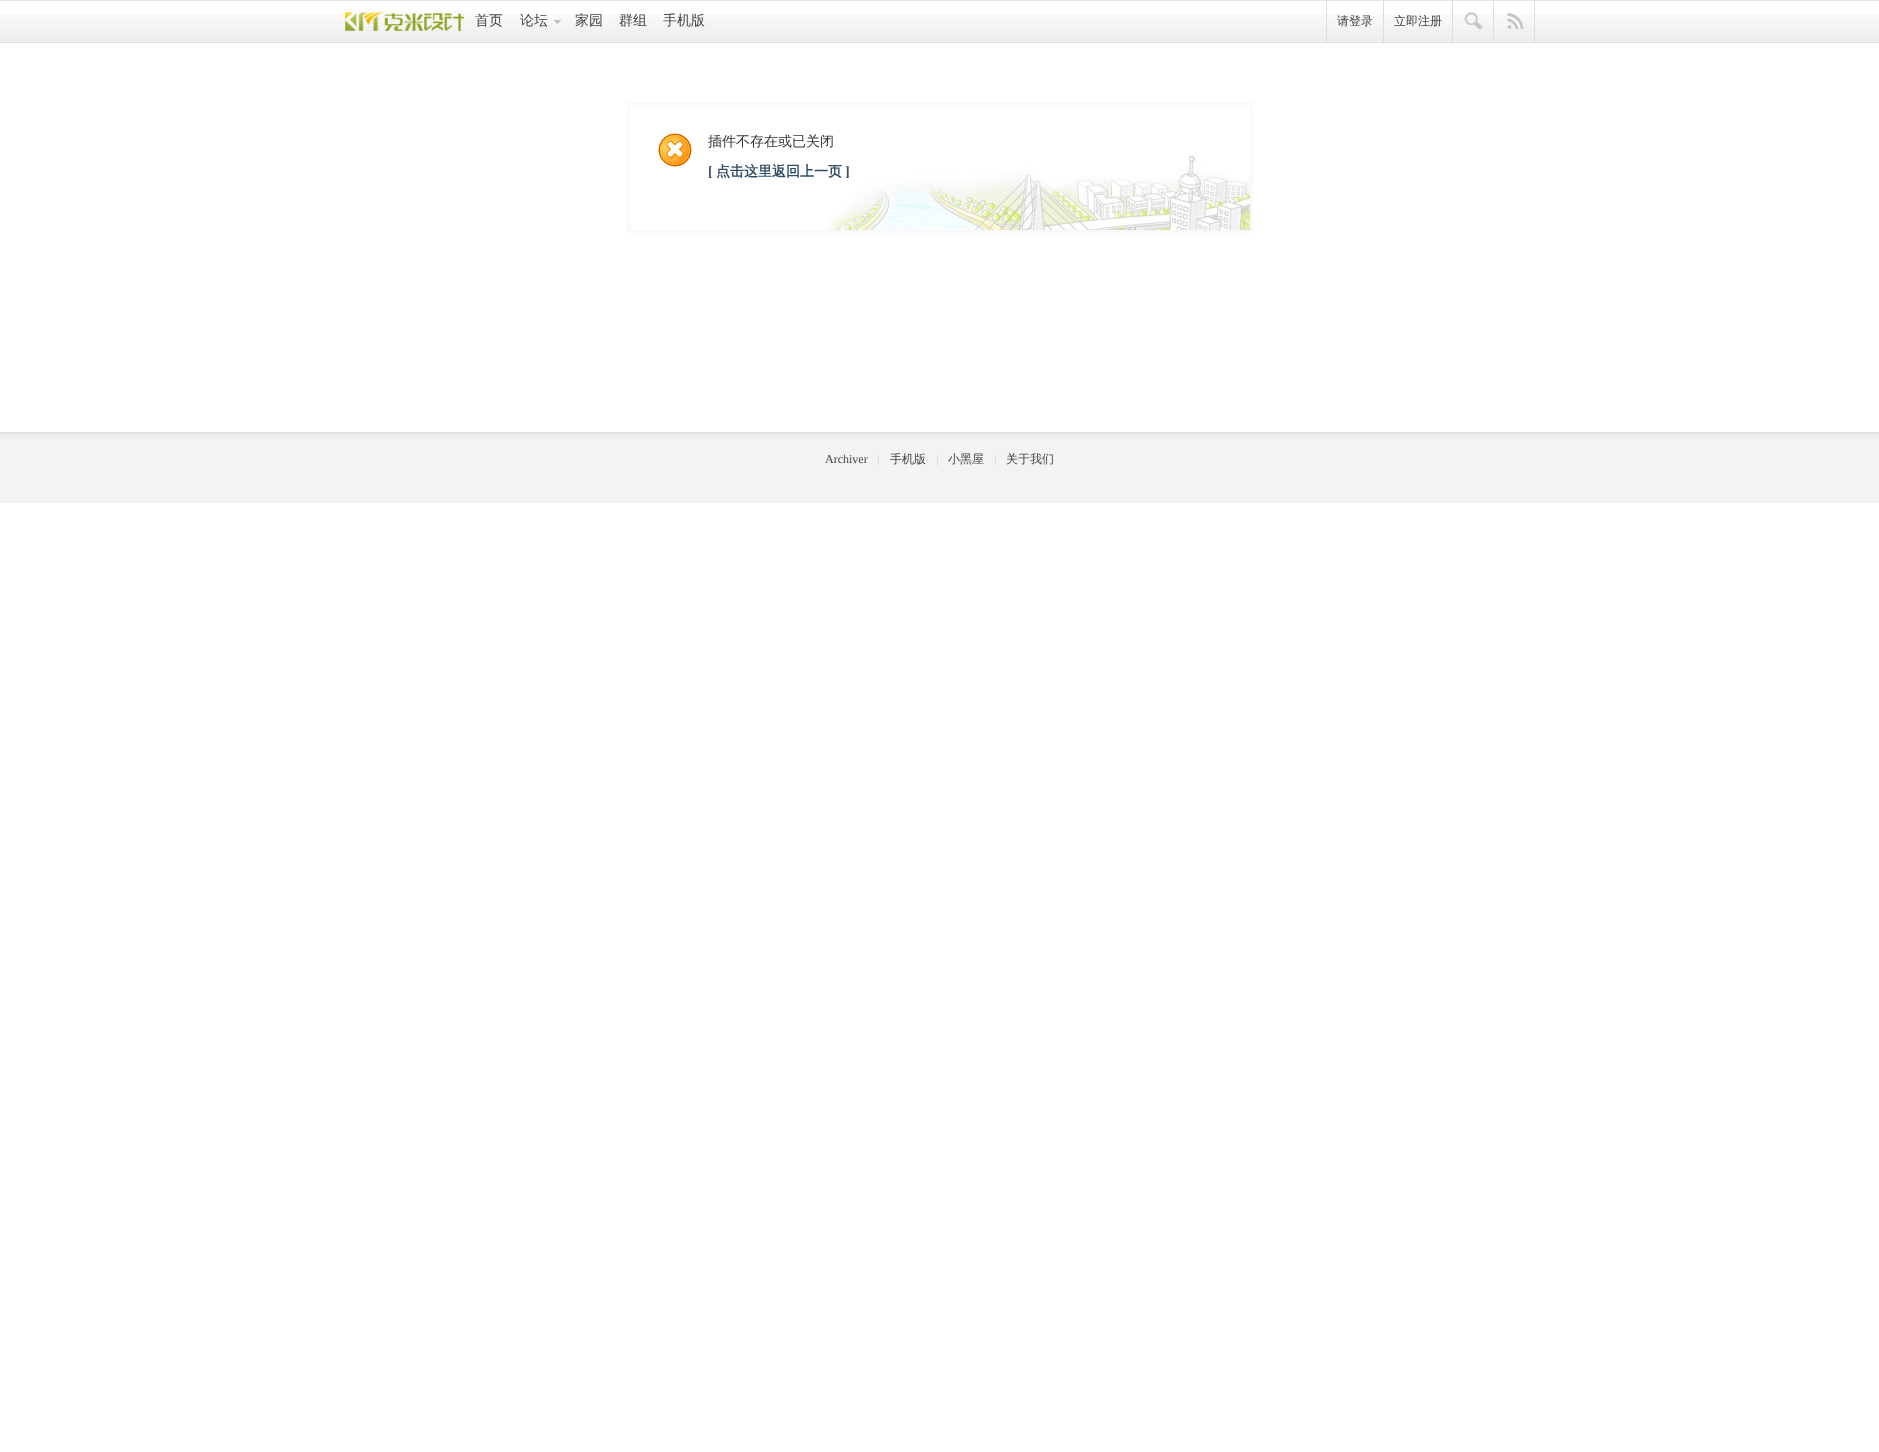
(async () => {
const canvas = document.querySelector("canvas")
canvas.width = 1879
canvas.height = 1452
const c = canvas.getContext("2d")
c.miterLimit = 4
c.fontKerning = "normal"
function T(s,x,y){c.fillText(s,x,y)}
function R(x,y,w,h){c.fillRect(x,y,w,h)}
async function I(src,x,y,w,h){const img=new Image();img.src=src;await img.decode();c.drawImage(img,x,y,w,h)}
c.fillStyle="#fff"
R(0,0,1879,1452)
await I("1.png",0,14,1879,29)
c.fillStyle="#e3e3e3"
R(0,0,1879,1)
await I("2.png",345,9,120,24)
c.font="500 14px WenQuanYi Zen Hei"
c.fillStyle="#444"
T("首页",475,25)
await I("3.png",554,20,7,4)
T("论坛",520,25)
T("家园",575,25)
T("群组",619,25)
T("手机版",663,25)
c.fillStyle="#ddd"
R(1383,1,1,42)
R(1326,1,1,42)
c.font="500 12px WenQuanYi Zen Hei"
c.fillStyle="#444"
T("请登录",1337,25)
c.fillStyle="#ddd"
R(1452,1,1,42)
c.fillStyle="#444"
T("立即注册",1394,25)
await I("4.png",1464,12,19,18)
c.fillStyle="#ddd"
R(1493,1,1,42)
await I("5.png",1507,13,17,16)
R(1534,1,1,42)
await I("6.png",825,156,425,74)
c.strokeStyle="#f9f9f9"
c.lineWidth=3
c.strokeRect(628.5,103.5,623,128)
await I("7.png",658,133,34,34)
c.font="500 14px WenQuanYi Zen Hei"
c.fillStyle="#333"
T("插件不存在或已关闭",708,146)
c.font="bold 14px Liberation Serif"
c.fillStyle="#334f67"
T("[",708,176)
c.font="bold 14px WenQuanYi Zen Hei"
T("点击这里返回上一页",716,176)
c.font="bold 14px Liberation Serif"
T("]",845,176)
c.fillStyle="#f3f3f3"
R(0,439,1879,64)
await I("8.png",0,433,1879,6)
c.fillStyle="#dbdbdb"
R(0,432,1879,1)
c.font="12px Liberation Serif"
c.fillStyle="#444"
T("Archiver",825,463)
c.fillStyle="#cdcdcd"
T("|",877,463)
c.font="500 12px WenQuanYi Zen Hei"
c.fillStyle="#444"
T("手机版",890,463)
c.font="12px Liberation Serif"
c.fillStyle="#cdcdcd"
T("|",936,463)
c.font="500 12px WenQuanYi Zen Hei"
c.fillStyle="#444"
T("小黑屋",948,463)
c.font="12px Liberation Serif"
c.fillStyle="#cdcdcd"
T("|",994,463)
c.font="500 12px WenQuanYi Zen Hei"
c.fillStyle="#444"
T("关于我们",1006,463)
})()
